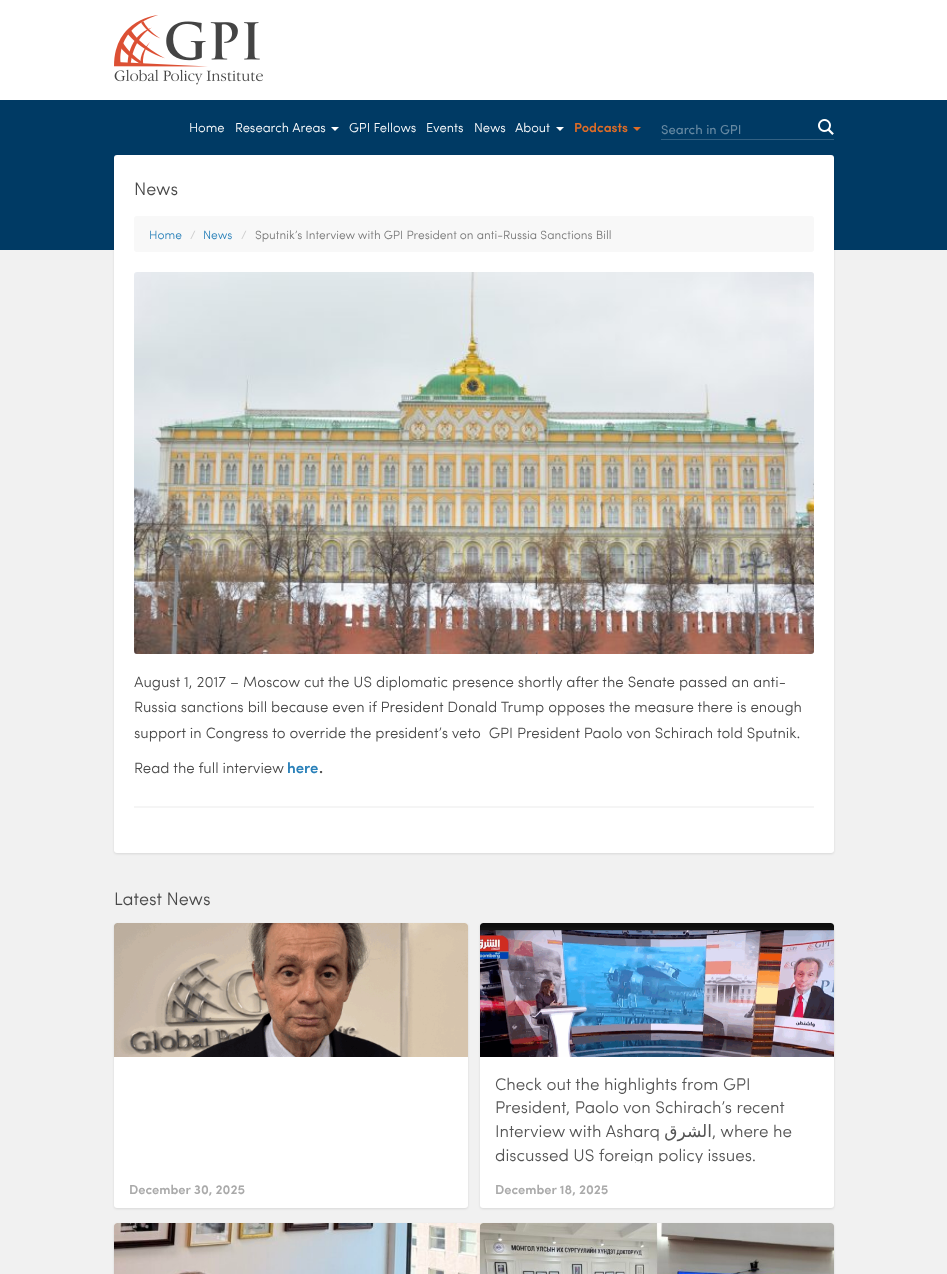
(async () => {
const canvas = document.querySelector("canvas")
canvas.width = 947
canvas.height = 1274
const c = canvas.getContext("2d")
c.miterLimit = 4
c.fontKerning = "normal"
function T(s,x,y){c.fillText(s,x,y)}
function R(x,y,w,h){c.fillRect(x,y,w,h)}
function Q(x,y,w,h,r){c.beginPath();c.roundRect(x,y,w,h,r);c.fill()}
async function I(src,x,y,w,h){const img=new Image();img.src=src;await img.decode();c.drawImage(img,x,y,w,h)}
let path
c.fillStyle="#f1f1f1"
R(0,0,947,1274)
c.fillStyle="#fff"
R(0,0,947,100)
await I("1.png",114,15,149,70)
c.fillStyle="#003a64"
R(0,100,947,150)
c.font="300 13px Sofia"
c.fillStyle="#fff"
T("Home",189,132)
T("Research Areas",235,132)
path = new Path2D("M331 127h8l-4 4z")
c.fill(path)
T("GPI Fellows",349,132)
T("Events",426,132)
T("News",474,132)
T("About",515,132)
path = new Path2D("M556 127h8l-4 4z")
c.fill(path)
c.font="600 13px Sofia"
c.fillStyle="#de6c27"
T("Podcasts",574,132)
path = new Path2D("M633 127h8l-4 4z")
c.fill(path)
c.fillStyle="#336183"
R(661,139,173,1)
c.font="13px Sofia"
c.fillStyle="#6689a2"
T("Search in GPI",661,134)
await I("2.png",818,119,16,16)
c.fillStyle="#0000001a"
c.filter="blur(1px)"
c.beginPath()
c.roundRect(114,156,720,698,3)
c.fill()
c.filter="none"
c.fillStyle="#fff"
Q(114,155,720,698,3)
c.font="300 18px Sofia"
c.fillStyle="#494949"
T("News",134,195)
c.fillStyle="#f8f8f8"
Q(134,216,680,36,3)
c.font="300 12px Sofia"
c.fillStyle="#2980b9"
T("Home",149,239)
c.fillStyle="#ccc"
T("/",190,239)
c.fillStyle="#2980b9"
T("News",203,239)
c.fillStyle="#ccc"
T("/",241,239)
c.fillStyle="#777"
T("Sputnik’s Interview with GPI President on anti-Russia Sanctions Bill",255,239)
await I("3.png",134,272,680,382)
c.font="300 15px Sofia"
c.fillStyle="#494949"
T("August 1, 2017 – Moscow cut the US diplomatic presence shortly after the Senate passed an anti-",134,687)
T("Russia sanctions bill because even if President Donald Trump opposes the measure there is enough",134,712)
T("support in Congress to override the president’s veto  GPI President Paolo von Schirach told Sputnik.",134,738)
T("Read the full interview",134,773)
c.font="600 15px Sofia"
c.fillStyle="#2980b9"
T("here",287,773)
c.fillStyle="#494949"
T(".",319,773)
c.fillStyle="#f5f5f5"
R(134,806,680,2)
c.font="300 18px Sofia"
c.fillStyle="#494949"
T("Latest News",114,905)
c.fillStyle="#0000001a"
c.filter="blur(1px)"
c.beginPath()
c.roundRect(114,924,354,285,3)
c.fill()
c.filter="none"
c.fillStyle="#fff"
Q(114,923,354,285,3)
await I("4.png",114,923,354,134)
c.font="600 13px Sofia"
c.fillStyle="#aaa"
T("December 30, 2025",129,1194)
c.fillStyle="#0000001a"
c.filter="blur(1px)"
c.beginPath()
c.roundRect(480,924,354,285,3)
c.fill()
c.filter="none"
c.fillStyle="#fff"
Q(480,923,354,285,3)
await I("5.png",480,923,354,134)
c.font="300 17px Sofia"
c.fillStyle="#555"
T("Check out the highlights from GPI",495,1090)
T("President, Paolo von Schirach’s recent",495,1113)
T("Interview with Asharq",495,1137)
c.direction="rtl"
c.font="17px DejaVu Sans"
T("الشرق",712,1137)
c.direction="ltr"
c.font="300 17px Sofia"
T(", where he",712,1137)
c.save()
c.beginPath()
c.rect(495,1072,324,91)
c.clip()
T("discussed US foreign policy issues.",495,1161)
c.restore()
c.font="600 13px Sofia"
c.fillStyle="#aaa"
T("December 18, 2025",495,1194)
c.fillStyle="#0000001a"
c.filter="blur(1px)"
c.beginPath()
c.roundRect(114,1224,354,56,3)
c.fill()
c.filter="none"
c.fillStyle="#fff"
Q(114,1223,354,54,3)
await I("6.png",114,1223,369,51)
c.fillStyle="#0000001a"
c.filter="blur(1px)"
c.beginPath()
c.roundRect(480,1224,354,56,3)
c.fill()
c.filter="none"
c.fillStyle="#fff"
Q(480,1223,354,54,3)
await I("7.png",480,1223,354,51)
})()
